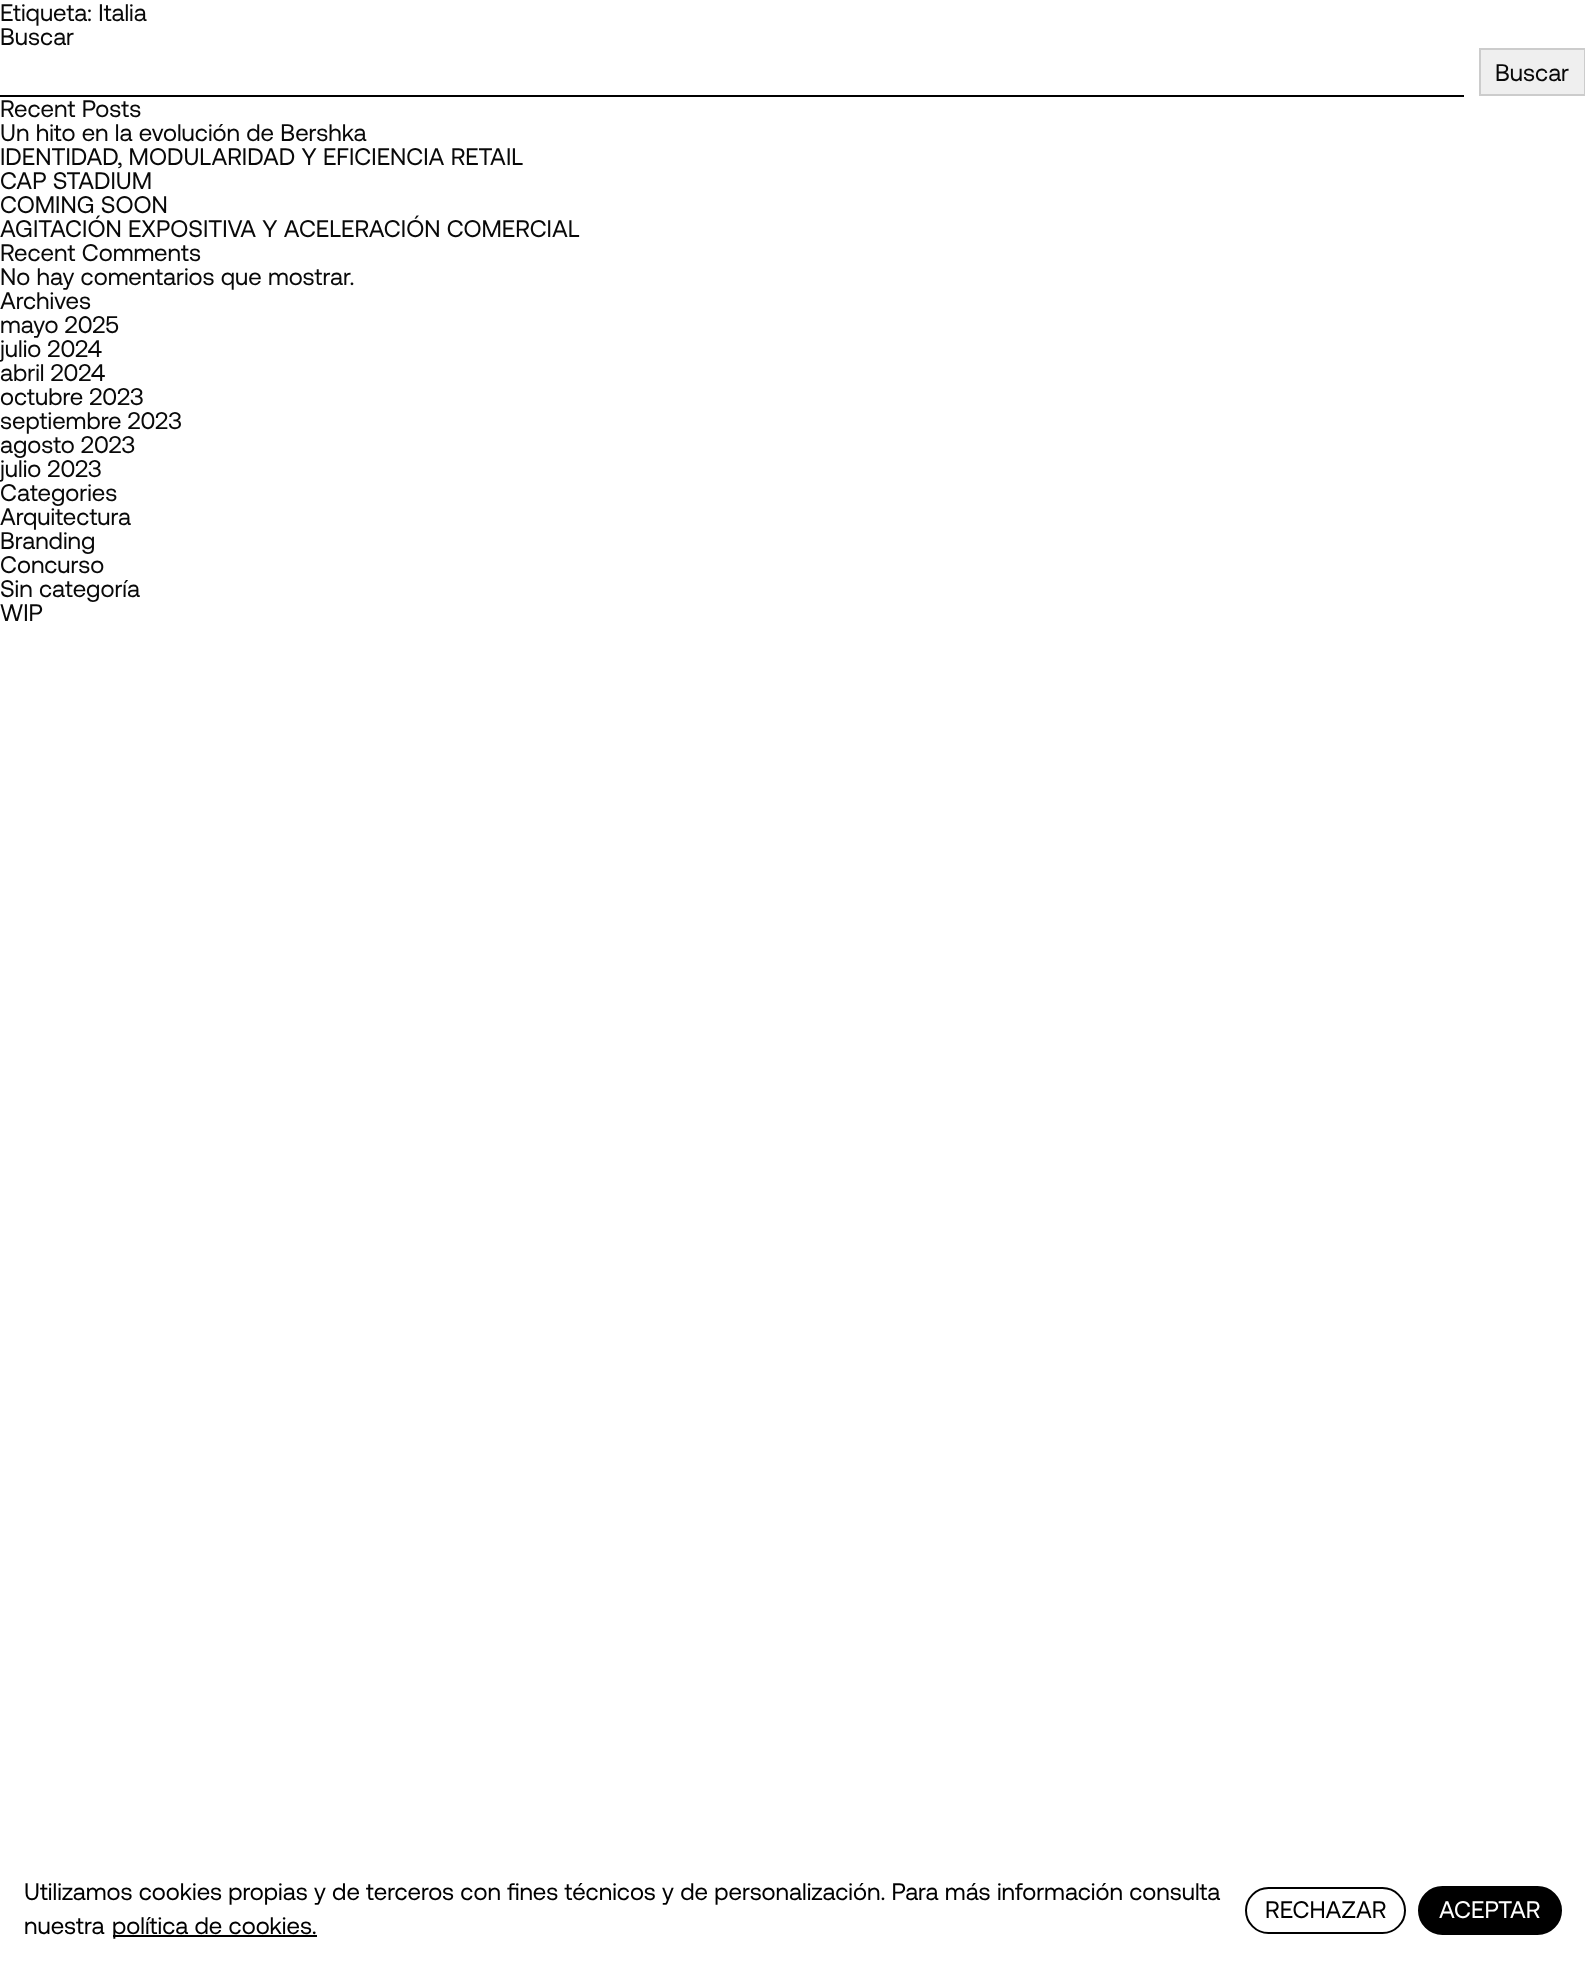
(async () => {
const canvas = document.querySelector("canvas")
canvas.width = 1585
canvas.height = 1967
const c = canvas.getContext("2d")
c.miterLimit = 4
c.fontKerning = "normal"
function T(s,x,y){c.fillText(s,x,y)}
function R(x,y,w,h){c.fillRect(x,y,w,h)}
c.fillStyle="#fff"
R(0,0,1585,1967)
c.font="24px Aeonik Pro"
c.fillStyle="#090909"
T("Etiqueta: Italia",0,21)
T("Buscar",0,45)
c.fillStyle="#efefef"
c.beginPath()
c.rect(1480,49,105,46)
c.fill()
c.strokeStyle="#ccc"
c.lineWidth=2
c.stroke()
c.fillStyle="#090909"
T("Buscar",1495,81)
c.fillStyle="#000"
R(0,95,1464,2)
c.fillStyle="#090909"
T("Recent Posts",0,117)
T("Un hito en la evolución de Bershka",0,141)
T("IDENTIDAD, MODULARIDAD Y EFICIENCIA RETAIL",0,165)
T("CAP STADIUM",0,189)
T("COMING SOON",0,213)
T("AGITACIÓN EXPOSITIVA Y ACELERACIÓN COMERCIAL",0,237)
T("Recent Comments",0,261)
T("No hay comentarios que mostrar.",0,285)
T("Archives",0,309)
T("mayo 2025",0,333)
T("julio 2024",0,357)
T("abril 2024",0,381)
T("octubre 2023",0,405)
T("septiembre 2023",0,429)
T("agosto 2023",0,453)
T("julio 2023",0,477)
T("Categories",0,501)
T("Arquitectura",0,525)
T("Branding",0,549)
T("Concurso",0,573)
T("Sin categoría",0,597)
T("WIP",0,621)
c.fillStyle="#000"
T("Utilizamos cookies propias y de terceros con fines técnicos y de personalización. Para más información consulta",24,1900)
T("nuestra",24,1934)
R(113,1935,204,2)
T("política de cookies.",112,1934)
c.beginPath()
c.roundRect(1246,1888,159,45,22.5)
c.strokeStyle="#000"
c.stroke()
T("RECHAZAR",1265,1918)
c.beginPath()
c.roundRect(1419.5,1887.5,141,46,23)
c.fill()
c.lineWidth=3
c.stroke()
c.fillStyle="#fff"
T("ACEPTAR",1439,1918)
})()
